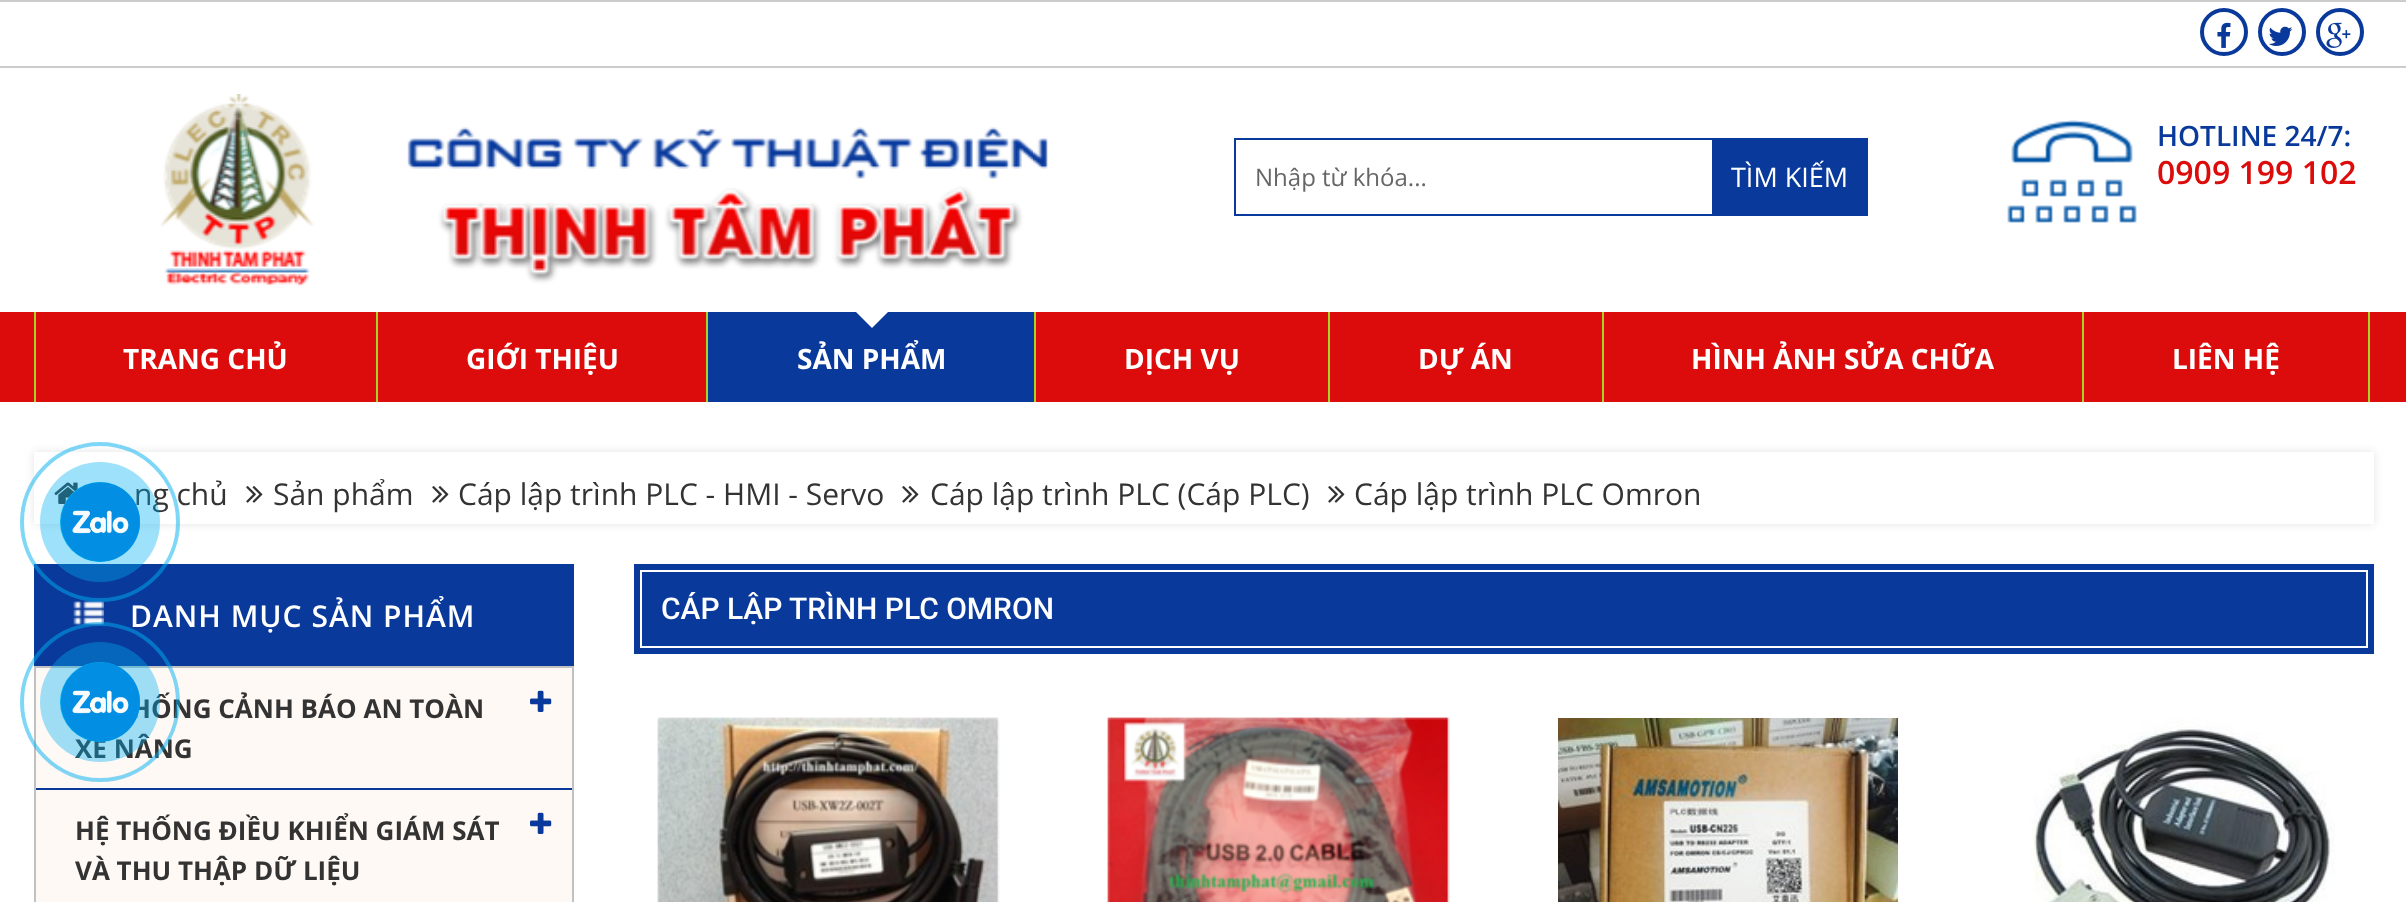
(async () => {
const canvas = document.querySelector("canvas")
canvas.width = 2406
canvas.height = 902
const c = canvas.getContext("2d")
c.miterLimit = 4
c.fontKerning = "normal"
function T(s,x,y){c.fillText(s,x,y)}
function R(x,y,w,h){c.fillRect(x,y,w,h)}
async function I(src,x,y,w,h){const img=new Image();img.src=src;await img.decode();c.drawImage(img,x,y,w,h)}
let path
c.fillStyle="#fff"
R(0,0,2406,902)
c.fillStyle="#ccc"
R(0,0,2406,2)
R(0,66,2406,2)
c.beginPath()
c.arc(2224,32,22,0,7)
c.strokeStyle="#09399a"
c.lineWidth=4
c.stroke()
await I("1.png",2217,22,14,26)
c.beginPath()
c.arc(2282,32,22,0,7)
c.stroke()
await I("2.png",2268,26,25,20)
c.beginPath()
c.arc(2340,32,22,0,7)
c.stroke()
await I("3.png",2326,22,25,26)
await I("4.png",160,94,888,192)
c.lineWidth=2
c.strokeRect(1235,139,478,76)
c.font="24px Open Sans"
c.fillStyle="#666"
T("Nhập từ khóa...",1255,186)
c.fillStyle="#09399a"
R(1714,138,154,78)
c.font="27px Open Sans"
c.fillStyle="#fff"
T("TÌM KIẾM",1731,187)
await I("5.png",2007,120,130,103)
c.font="600 28px Open Sans"
c.fillStyle="#09399a"
T("HOTLINE 24/7:",2157,146)
c.font="600 32px Open Sans"
c.fillStyle="#db0c0b"
T("0909 199 102",2157,184)
R(0,312,2406,90)
c.fillStyle="#aad126"
R(34,312,2,90)
c.font="bold 28px Open Sans"
c.fillStyle="#fff"
T("TRANG CHỦ",123,369)
c.fillStyle="#aad126"
R(376,312,2,90)
c.fillStyle="#fff"
T("GIỚI THIỆU",466,369)
c.fillStyle="#09399a"
R(708,312,326,90)
c.fillStyle="#aad126"
R(706,312,2,90)
c.fillStyle="#fff"
path = new Path2D("M856 312h32l-16 16z")
c.fill(path)
T("SẢN PHẨM",797,369)
c.fillStyle="#aad126"
R(1034,312,2,90)
c.fillStyle="#fff"
T("DỊCH VỤ",1124,369)
c.fillStyle="#aad126"
R(1328,312,2,90)
c.fillStyle="#fff"
T("DỰ ÁN",1418,369)
c.fillStyle="#aad126"
R(1602,312,2,90)
c.fillStyle="#fff"
T("HÌNH ẢNH SỬA CHỮA",1691,369)
c.fillStyle="#aad126"
R(2368,312,2,90)
R(2082,312,2,90)
c.fillStyle="#fff"
T("LIÊN HỆ",2172,369)
c.save()
path = new Path2D("M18 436h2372v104h-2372zm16 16h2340v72h-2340z")
c.clip(path,"evenodd")
c.fillStyle="#0000001a"
c.filter="blur(5px)"
c.beginPath()
c.rect(34,452,2340,72)
c.fill()
c.filter="none"
c.restore()
await I("6.png",54,482,24,22)
c.font="30px Open Sans"
c.fillStyle="#333"
T("ng chủ",134,505)
await I("7.png",246,486,17,17)
T("Sản phẩm",273,505)
await I("7.png",432,486,17,17)
T("Cáp lập trình PLC - HMI - Servo",458,505)
await I("7.png",902,486,17,17)
T("Cáp lập trình PLC (Cáp PLC)",930,505)
await I("7.png",1328,486,17,17)
T("Cáp lập trình PLC Omron",1354,505)
c.fillStyle="#09399a"
R(34,564,540,102)
await I("8.png",73,601,31,24)
c.letterSpacing="1px"
c.font="600 30px Open Sans"
c.fillStyle="#fff"
T("DANH MỤC SẢN PHẨM",130,627)
c.fillStyle="#fff9f5"
c.beginPath()
c.rect(35,667,538,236)
c.fill()
c.strokeStyle="#c1c1c1"
c.stroke()
c.fillStyle="#09399a"
R(36,788,536,2)
c.letterSpacing="0px"
c.font="bold 26px Open Sans"
c.fillStyle="#333"
T("HỐNG CẢNH BÁO AN TOÀN",131,718)
T("XE NÂNG",75,758)
await I("9.png",530,690,22,22)
T("HỆ THỐNG ĐIỀU KHIỂN GIÁM SÁT",75,840)
T("VÀ THU THẬP DỮ LIỆU",75,880)
await I("9.png",530,812,22,22)
c.fillStyle="#09399a"
R(634,564,1740,90)
c.strokeStyle="#fff"
c.strokeRect(641,571,1726,76)
c.font="500 30px Roboto"
c.fillStyle="#fff"
T("CÁP LẬP TRÌNH PLC OMRON",661,619)
await I("10.png",657,717,343,185)
await I("11.png",1107,717,343,185)
await I("12.png",1558,718,340,184)
await I("13.png",2031,718,304,184)
c.beginPath()
c.arc(100,522,78,0,7)
c.strokeStyle="#00aff280"
c.lineWidth=4
c.stroke()
c.fillStyle="#00aff261"
c.beginPath()
c.arc(100,522,60,0,7)
c.fill()
c.fillStyle="#00aff2"
c.beginPath()
c.arc(100,522,40,0,7)
c.fill()
await I("14.png",60,482,80,80)
c.beginPath()
c.arc(100,702,78,0,7)
c.stroke()
c.fillStyle="#00aff261"
c.beginPath()
c.arc(100,702,60,0,7)
c.fill()
c.fillStyle="#00aff2"
c.beginPath()
c.arc(100,702,40,0,7)
c.fill()
await I("15.png",60,662,80,80)
})()
